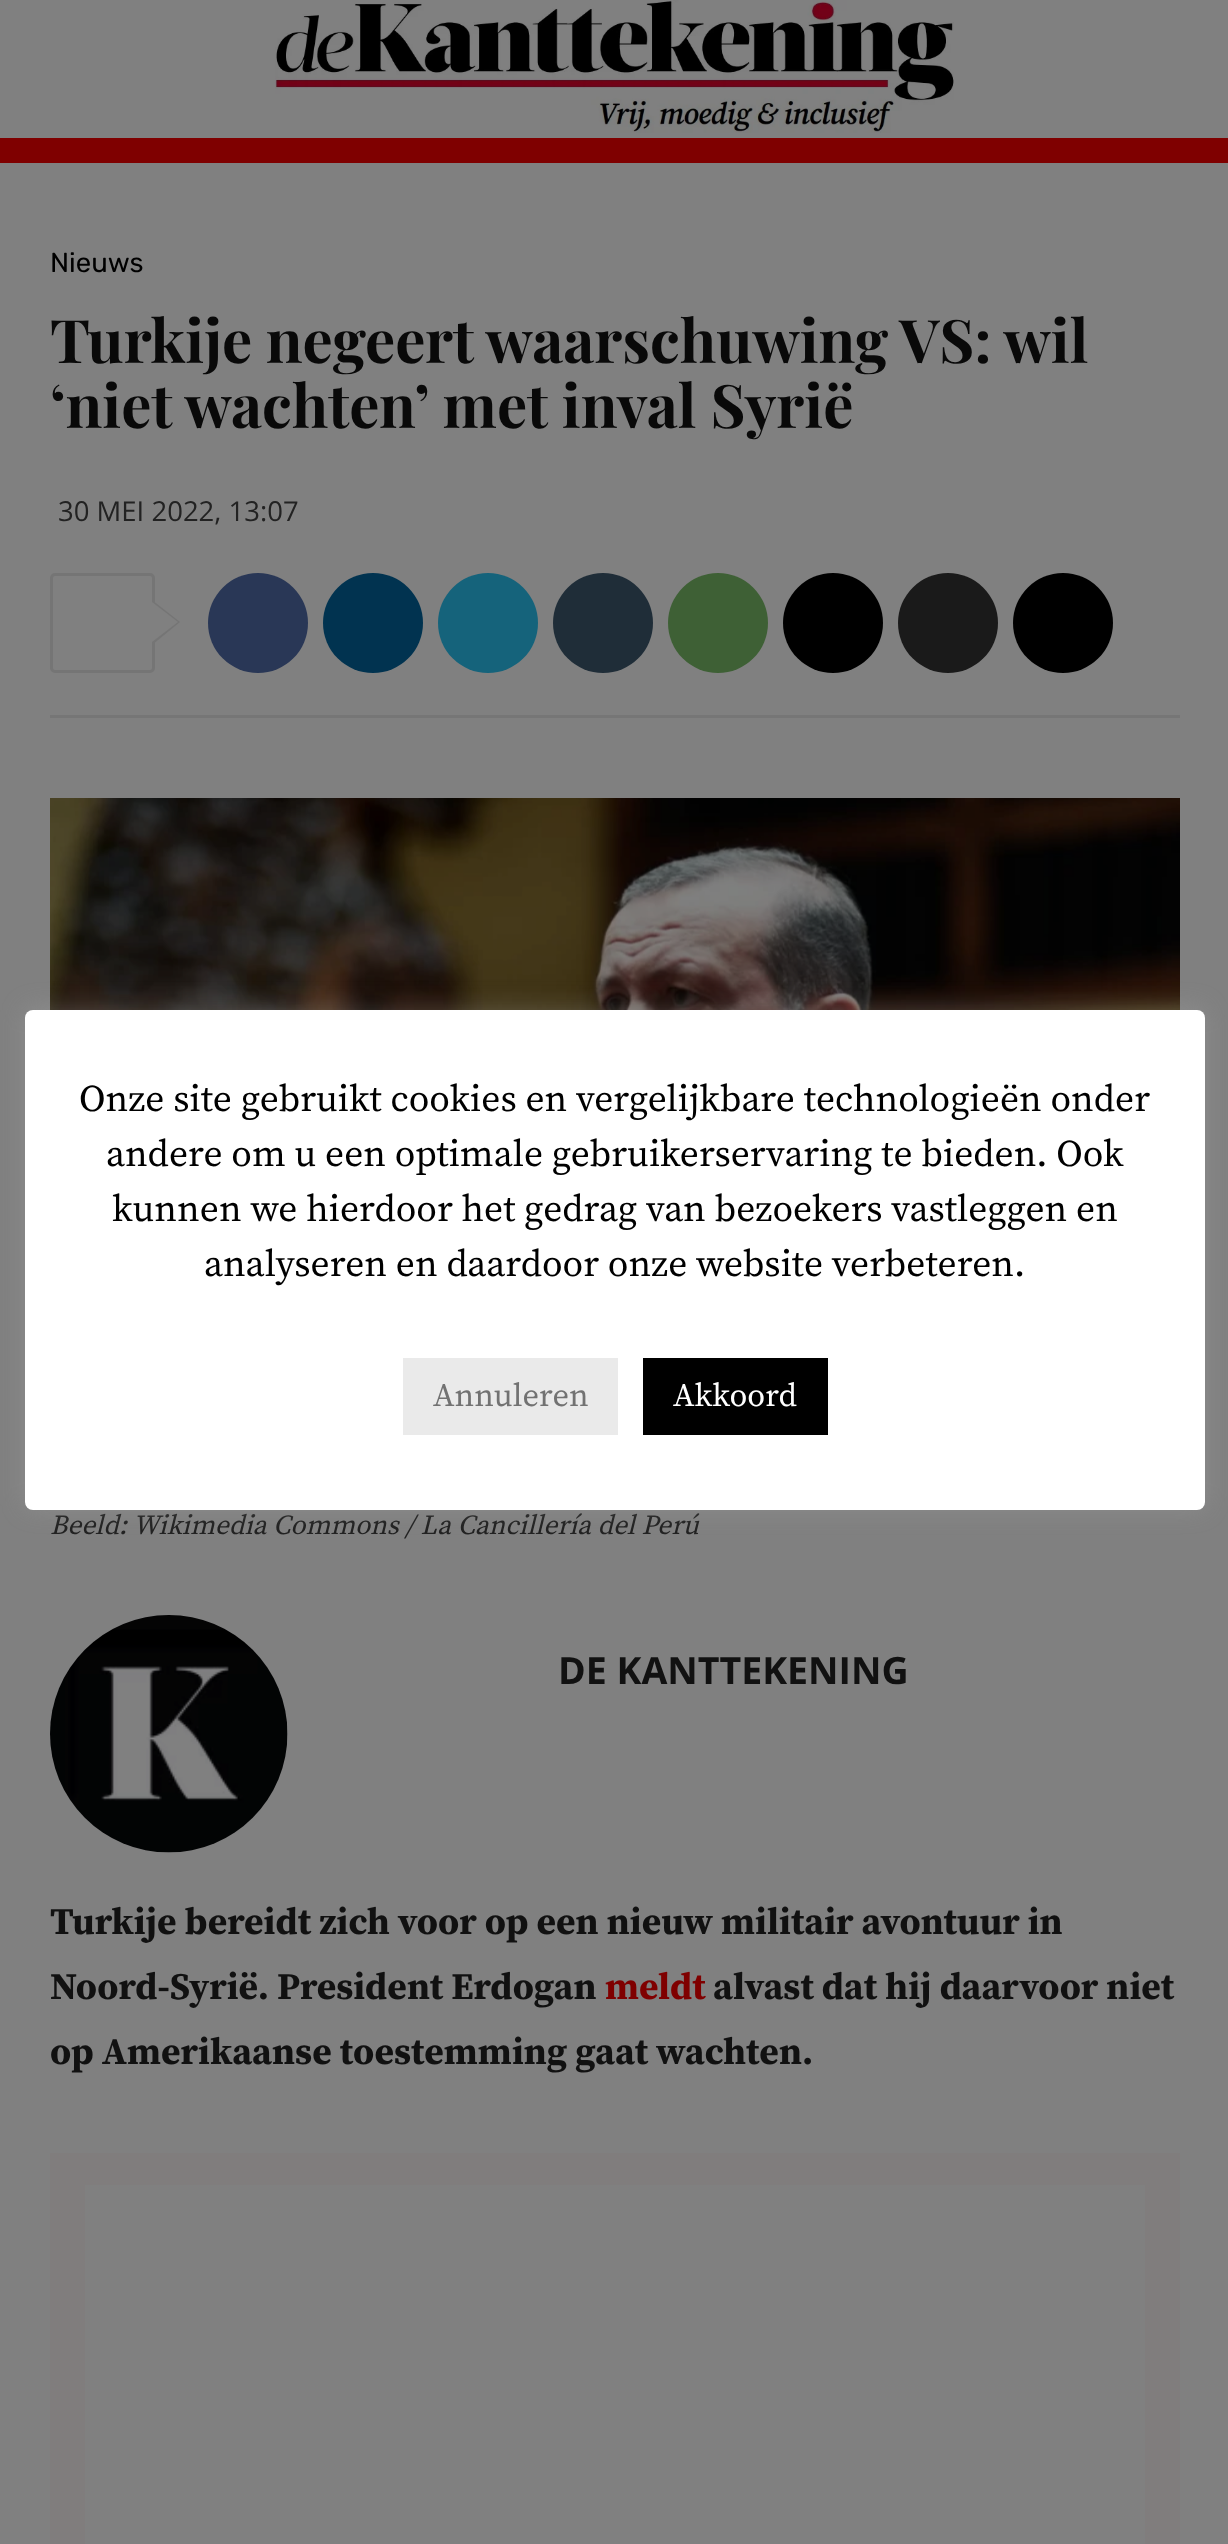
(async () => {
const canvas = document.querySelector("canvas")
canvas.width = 1228
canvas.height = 2544
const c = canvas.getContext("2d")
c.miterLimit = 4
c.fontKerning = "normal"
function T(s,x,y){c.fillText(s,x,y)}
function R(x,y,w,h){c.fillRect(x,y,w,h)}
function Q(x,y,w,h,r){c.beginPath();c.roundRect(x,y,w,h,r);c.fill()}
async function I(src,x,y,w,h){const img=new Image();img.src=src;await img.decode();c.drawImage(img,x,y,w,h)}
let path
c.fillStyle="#808080"
R(0,0,1228,2544)
c.fillStyle="#7f0000"
R(0,138,1228,25)
await I("1.png",275,0,679,133)
c.font="300 27.5px Rubik"
c.fillStyle="#000"
T("Nieuws",50,272)
c.wordSpacing="-0.5px"
c.font="bold 60px Playfair Display"
c.fillStyle="#090909"
T("Turkije negeert waarschuwing VS: wil",50,363)
c.wordSpacing="0px"
T("‘niet wachten’ met inval Syrië",50,428)
c.font="27.5px Open Sans"
c.fillStyle="#222"
T("30 MEI 2022, 13:07",58,521)
c.beginPath()
c.roundRect(51.5,574.5,102,97,3.5)
c.strokeStyle="#757575"
c.lineWidth=3
c.stroke()
c.fillStyle="#757575"
path = new Path2D("M152 645v-45l28 22z")
c.fill(path)
c.fillStyle="#808080"
path = new Path2D("M152 642v-40l26 20z")
c.fill(path)
c.fillStyle="#293756"
c.beginPath()
c.arc(258,623,50,0,7)
c.fill()
c.fillStyle="#013350"
c.beginPath()
c.arc(373,623,50,0,7)
c.fill()
c.fillStyle="#15637b"
c.beginPath()
c.arc(488,623,50,0,7)
c.fill()
c.fillStyle="#1f2d38"
c.beginPath()
c.arc(603,623,50,0,7)
c.fill()
c.fillStyle="#3e6035"
c.beginPath()
c.arc(718,623,50,0,7)
c.fill()
c.fillStyle="#000"
c.beginPath()
c.arc(833,623,50,0,7)
c.fill()
c.fillStyle="#1a1a1a"
c.beginPath()
c.arc(948,623,50,0,7)
c.fill()
c.fillStyle="#000"
c.beginPath()
c.arc(1063,623,50,0,7)
c.fill()
c.fillStyle="#767676"
R(50,715,1130,3)
await I("2.png",50,798,1130,212)
c.font="italic 27.5px Source Serif Pro"
c.fillStyle="#222"
T("Beeld: Wikimedia Commons / La Cancillería del Perú",50,1534)
await I("3.png",50,1615,238,238)
c.font="bold 37.5px Open Sans"
c.fillStyle="#111"
T("DE KANTTEKENING",558,1684)
c.font="bold 37.5px Source Serif Pro"
T("Turkije bereidt zich voor op een nieuw militair avontuur in",50,1934)
T("Noord-Syrië. President Erdogan",50,1999)
c.fillStyle="#7f0000"
T("meldt",605,1999)
c.fillStyle="#111"
T("alvast dat hij daarvoor niet",713,1999)
T("op Amerikaanse toestemming gaat wachten.",50,2064)
c.fillStyle="#807d7d"
R(50,2153,1130,391)
c.fillStyle="#808080"
R(85,2185,1060,359)
c.fillStyle="#acabab4d"
c.filter="blur(12.5px)"
c.beginPath()
c.roundRect(25,1008,1180,500,8)
c.fill()
c.filter="none"
c.fillStyle="#fff"
Q(25,1010,1180,500,8)
c.font="37.5px Source Serif Pro"
c.fillStyle="#000"
T("Onze site gebruikt cookies en vergelijkbare technologieën onder",79,1111)
T("andere om u een optimale gebruikerservaring te bieden. Ook",106,1166)
T("kunnen we hierdoor het gedrag van bezoekers vastleggen en",112,1221)
T("analyseren en daardoor onze website verbeteren.",204,1276)
c.fillStyle="#eaeaea"
R(403,1358,215,77)
c.font="32.5px Source Serif Pro"
c.fillStyle="#727272"
T("Annuleren",433,1406)
c.fillStyle="#000"
R(643,1358,185,77)
c.fillStyle="#fff"
T("Akkoord",673,1406)
})()
